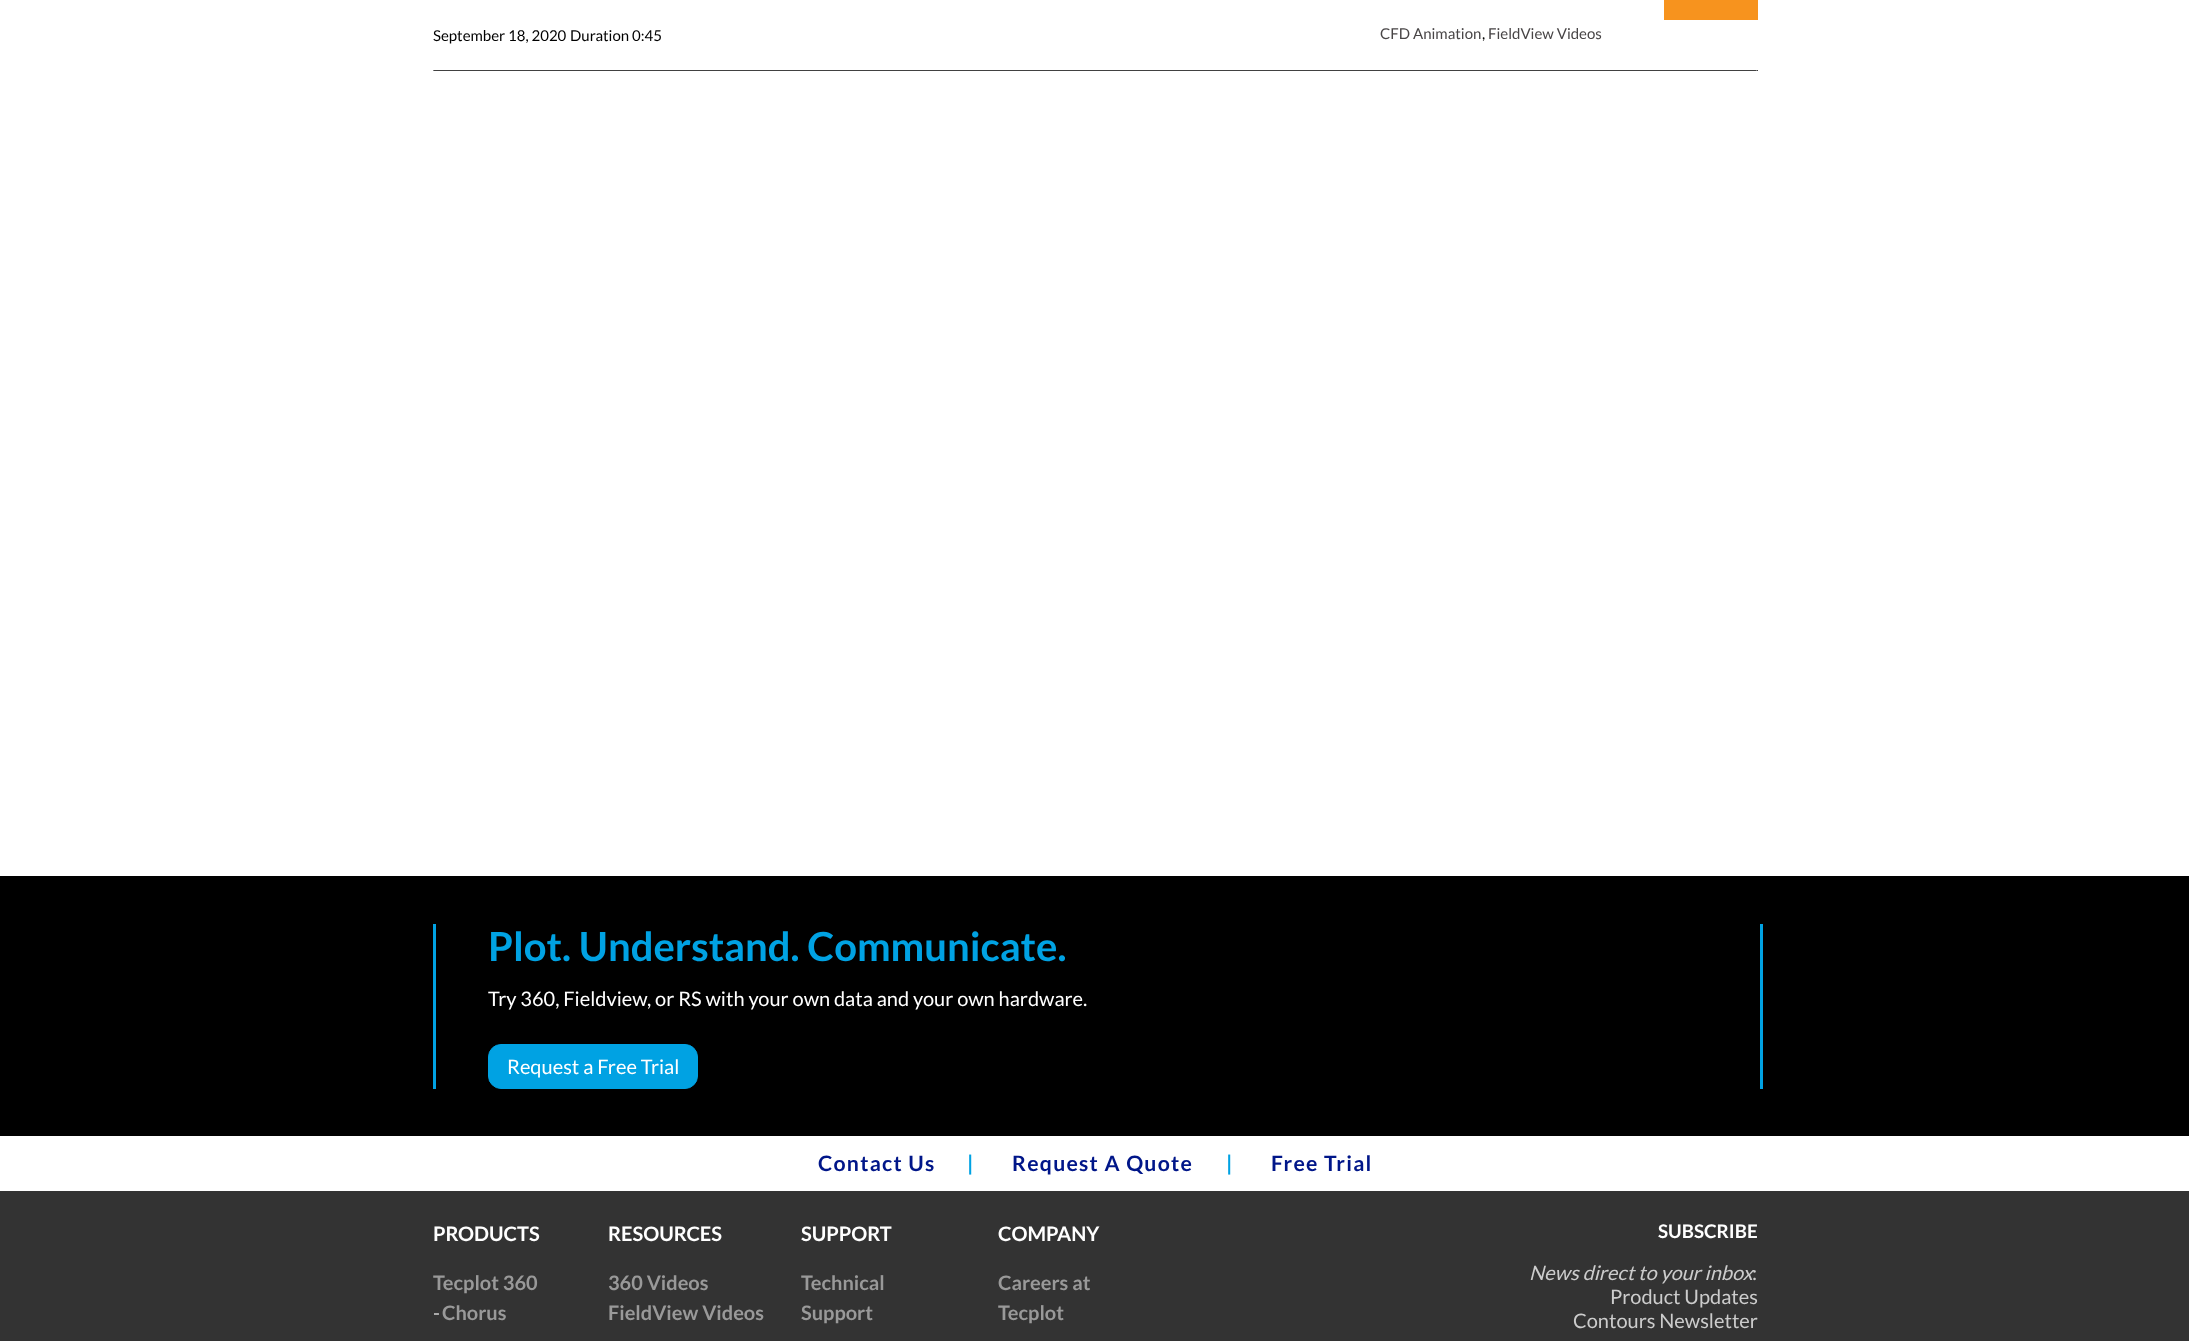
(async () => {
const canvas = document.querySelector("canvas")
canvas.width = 2189
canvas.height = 1341
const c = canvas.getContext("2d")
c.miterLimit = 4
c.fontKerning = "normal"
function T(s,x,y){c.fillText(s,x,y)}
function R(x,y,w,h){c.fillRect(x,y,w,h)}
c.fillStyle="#fff"
R(0,0,2189,1341)
c.fillStyle="#f7931e"
R(1664,0,94,20)
c.font="15px Lato"
c.fillStyle="#000"
T("September 18, 2020",433,41)
T("Duration 0:45",570,41)
c.fillStyle="#484546"
T("CFD Animation",1380,39)
c.fillStyle="#000"
T(",",1482,39)
c.fillStyle="#484546"
T("FieldView Videos",1488,39)
c.fillStyle="#414141"
R(433,70,1325,1)
c.fillStyle="#808080"
R(1756,70,1,1)
R(433,70,1,1)
c.fillStyle="#000"
R(0,876,2189,260)
c.fillStyle="#00a2e3"
R(1760,924,3,165)
R(433,924,3,165)
c.font="bold 40px Lato"
T("Plot. Understand. Communicate.",488,961)
c.font="20px Lato"
c.fillStyle="#fff"
T("Try 360, Fieldview, or RS with your own data and your own hardware.",488,1006)
c.fillStyle="#00a2e3"
c.beginPath()
c.roundRect(488.5,1044.5,209,44,12.5)
c.fill()
c.strokeStyle="#00a2e3"
c.stroke()
c.fillStyle="#fff"
T("Request a Free Trial",507,1074)
c.letterSpacing="1.25px"
c.font="bold 21.25px Lato"
c.fillStyle="#001689"
T("Contact Us",818,1171)
c.fillStyle="#00a2e3"
T("|",967,1171)
c.fillStyle="#001689"
T("Request A Quote",1012,1171)
c.fillStyle="#00a2e3"
T("|",1226,1171)
c.fillStyle="#001689"
T("Free Trial",1271,1171)
c.fillStyle="#333"
R(0,1191,2189,150)
c.letterSpacing="0px"
c.font="bold 20px Lato"
c.fillStyle="#fff"
T("PRODUCTS",433,1241)
c.fillStyle="#999"
T("Tecplot 360",433,1290)
c.font="20px Lato"
c.fillStyle="#ccc"
T("-",433,1320)
c.font="bold 20px Lato"
c.fillStyle="#999"
T("Chorus",442,1320)
c.fillStyle="#fff"
T("RESOURCES",608,1241)
c.fillStyle="#999"
T("360 Videos",608,1290)
T("FieldView Videos",608,1320)
c.fillStyle="#fff"
T("SUPPORT",801,1241)
c.fillStyle="#999"
T("Technical",801,1290)
T("Support",801,1320)
c.fillStyle="#fff"
T("COMPANY",998,1241)
c.fillStyle="#999"
T("Careers at",998,1290)
T("Tecplot",998,1320)
c.font="bold 18.75px Lato"
c.fillStyle="#fff"
T("SUBSCRIBE",1658,1238)
c.font="italic 20px Lato"
c.fillStyle="#ccc"
T("News direct to your inbox",1529,1280)
c.font="20px Lato"
T(":",1752,1280)
T("Product Updates",1610,1304)
T("Contours Newsletter",1573,1328)
})()
